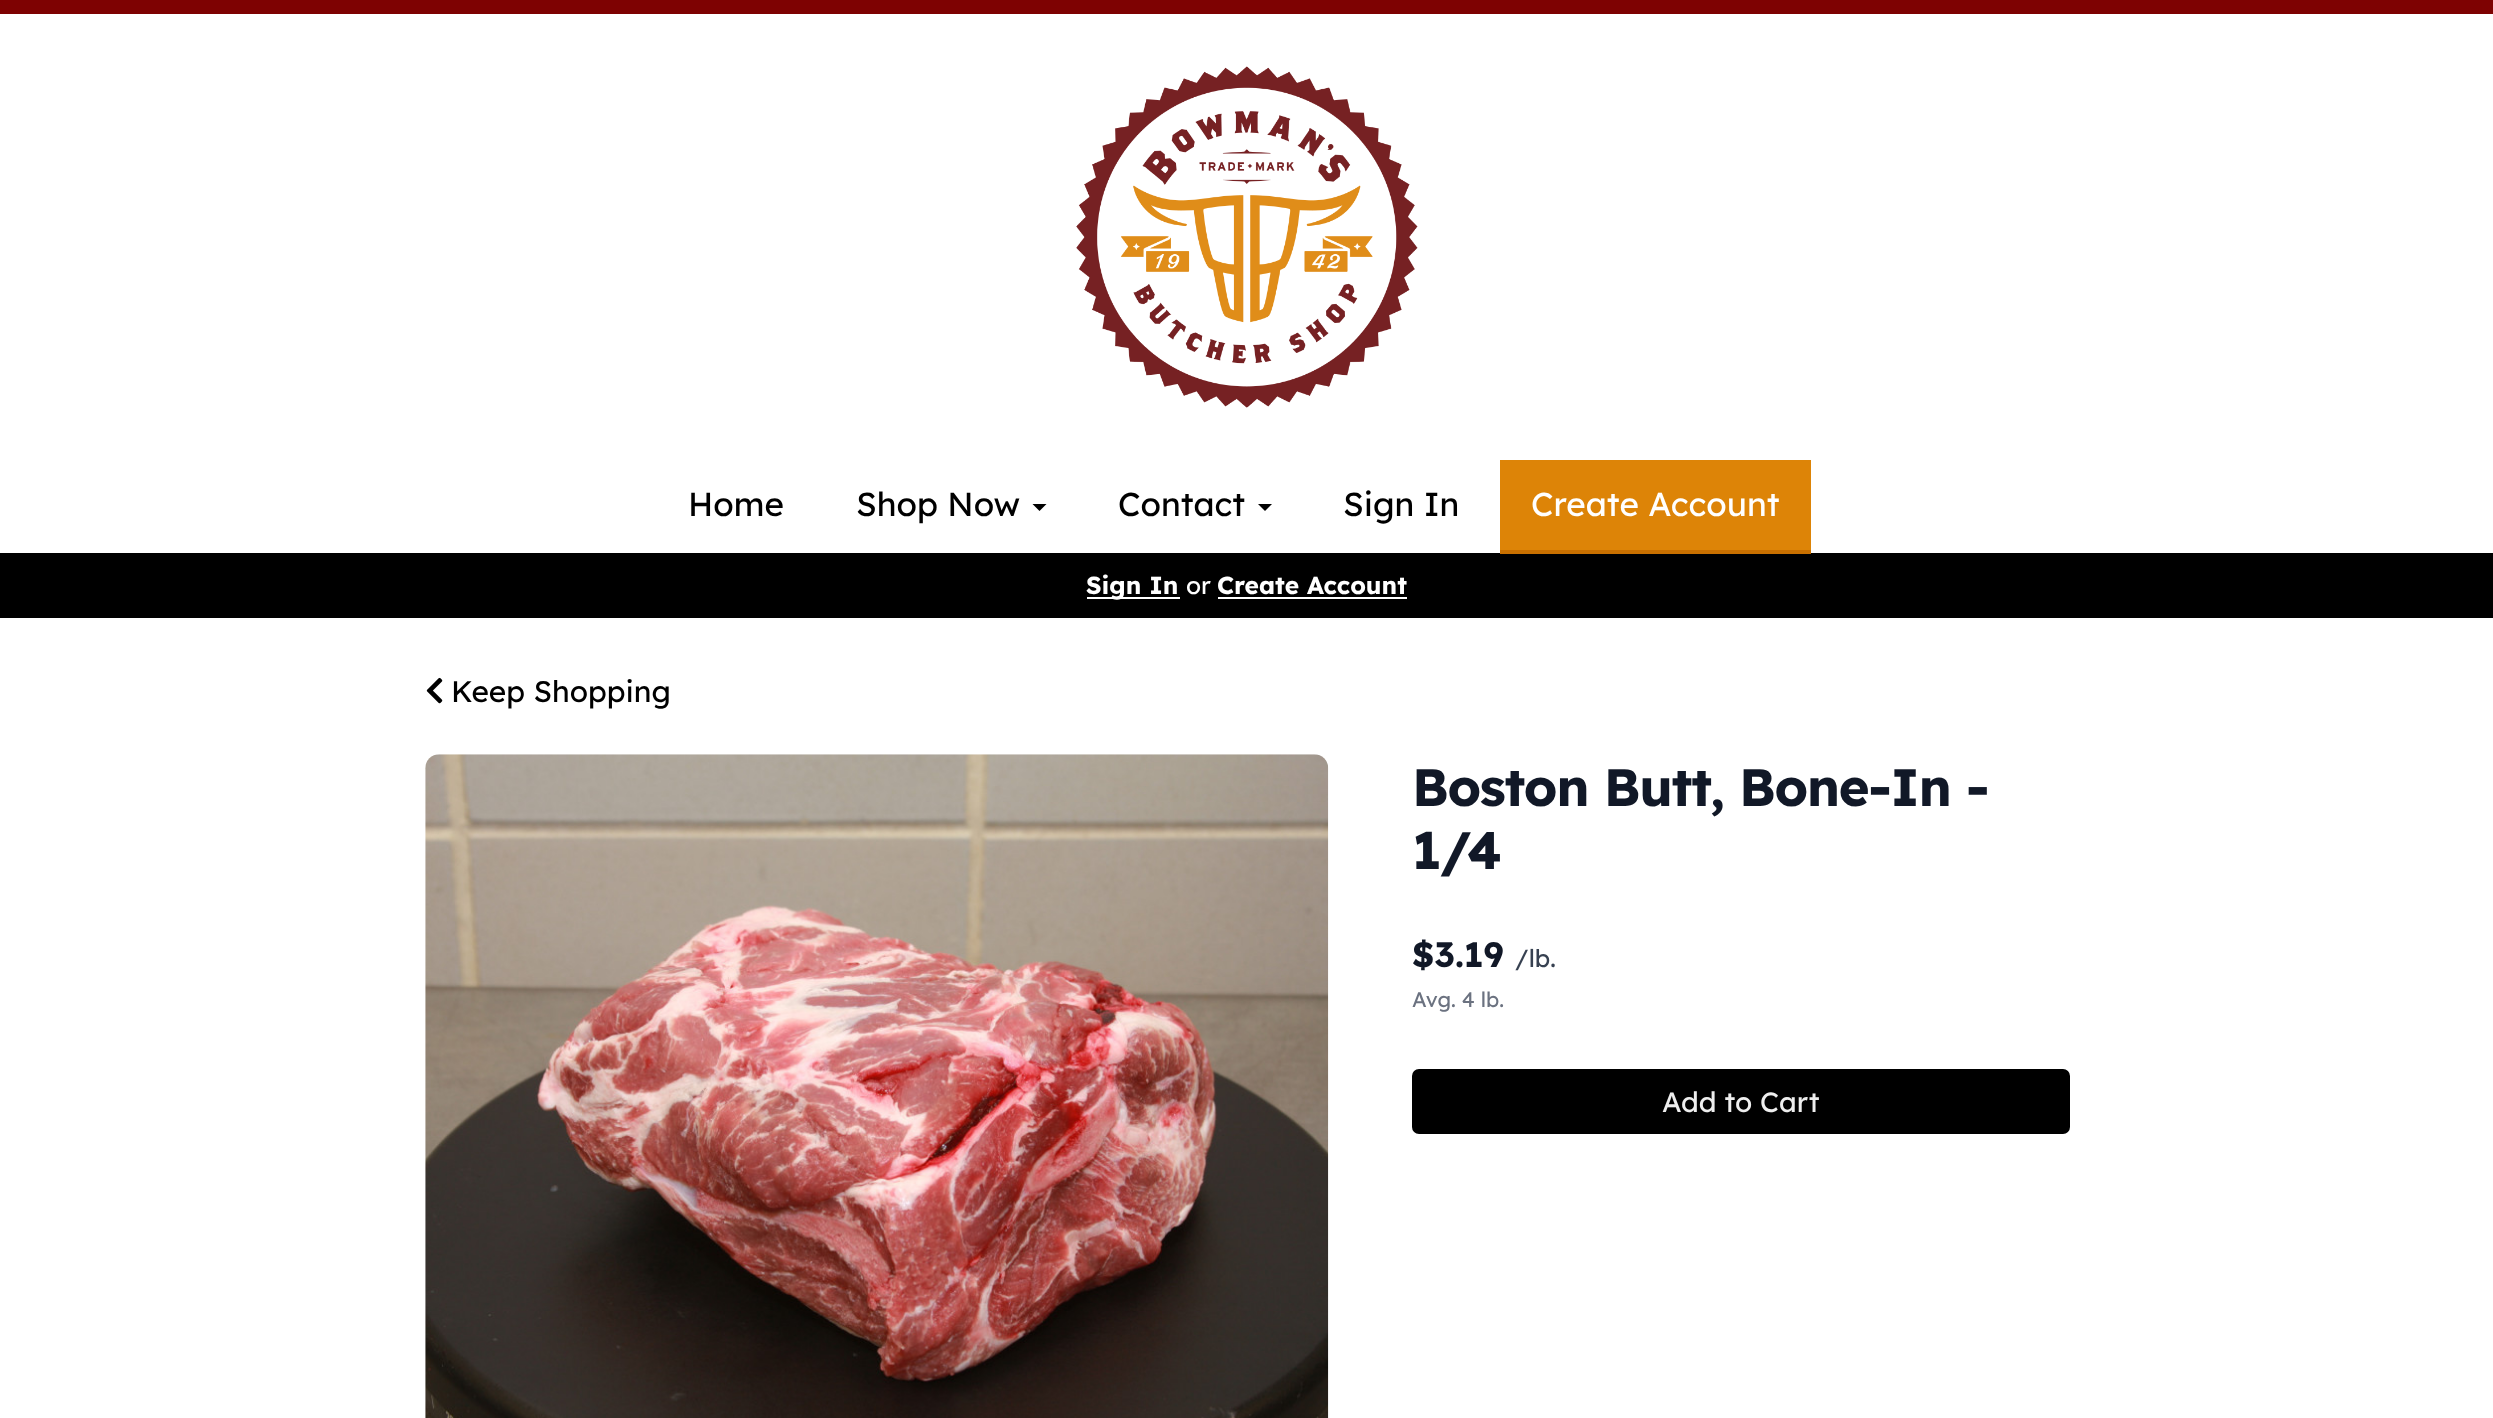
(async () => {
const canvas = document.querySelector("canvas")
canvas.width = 2493
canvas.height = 1418
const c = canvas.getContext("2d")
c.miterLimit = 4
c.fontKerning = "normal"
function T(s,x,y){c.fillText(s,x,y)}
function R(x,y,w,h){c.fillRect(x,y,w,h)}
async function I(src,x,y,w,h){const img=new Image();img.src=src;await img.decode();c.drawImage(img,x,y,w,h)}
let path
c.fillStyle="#fff"
R(0,0,2493,1418)
c.fillStyle="#7e0202"
R(0,0,2493,14)
await I("1.png",1076,66,342,342)
c.font="33.25px Lexend"
c.fillStyle="#000"
T("Home",688,516)
T("Shop Now",856,516)
path = new Path2D("M1032.5 504h14l-7 7z")
c.fill(path)
T("Contact",1118,516)
path = new Path2D("M1258 504h14l-7 7z")
c.fill(path)
T("Sign In",1343,516)
c.fillStyle="#dd8407"
R(1500,460,311,90)
c.fillStyle="#000"
R(0,553,2493,65)
c.fillStyle="#c97000"
R(1500,550,311,4)
c.fillStyle="#fff"
T("Create Account",1531,516)
R(1087,597,93,2)
c.font="bold 24.5px Lexend"
T("Sign In",1086,594)
c.font="24.5px Lexend"
T("or",1186,594)
c.font="bold 24.5px Lexend"
T("Create Account",1217,594)
R(1218,597,189,2)
await I("2.png",426,677,17,27)
c.font="29.75px Lexend"
c.fillStyle="#000"
T("Keep Shopping",451,702)
await I("3.png",425,754,904,664)
c.letterSpacing="-1.3px"
c.font="bold 52.5px Lexend"
c.fillStyle="#111827"
T("Boston Butt, Bone-In -",1412,806)
T("1/4",1412,869)
c.letterSpacing="0px"
c.font="bold 35px Lexend"
T("$3.19",1412,967)
c.font="24.5px Lexend"
c.fillStyle="#374151"
T("/lb.",1515,967)
c.font="21px Lexend"
c.fillStyle="#6b7280"
T("Avg. 4 lb.",1412,1007)
c.fillStyle="#000"
c.beginPath()
c.roundRect(1413,1070,656,63,6)
c.fill()
c.strokeStyle="#000"
c.lineWidth=2
c.stroke()
c.font="28px Lexend"
c.fillStyle="#eee"
T("Add to Cart",1662,1112)
})()
